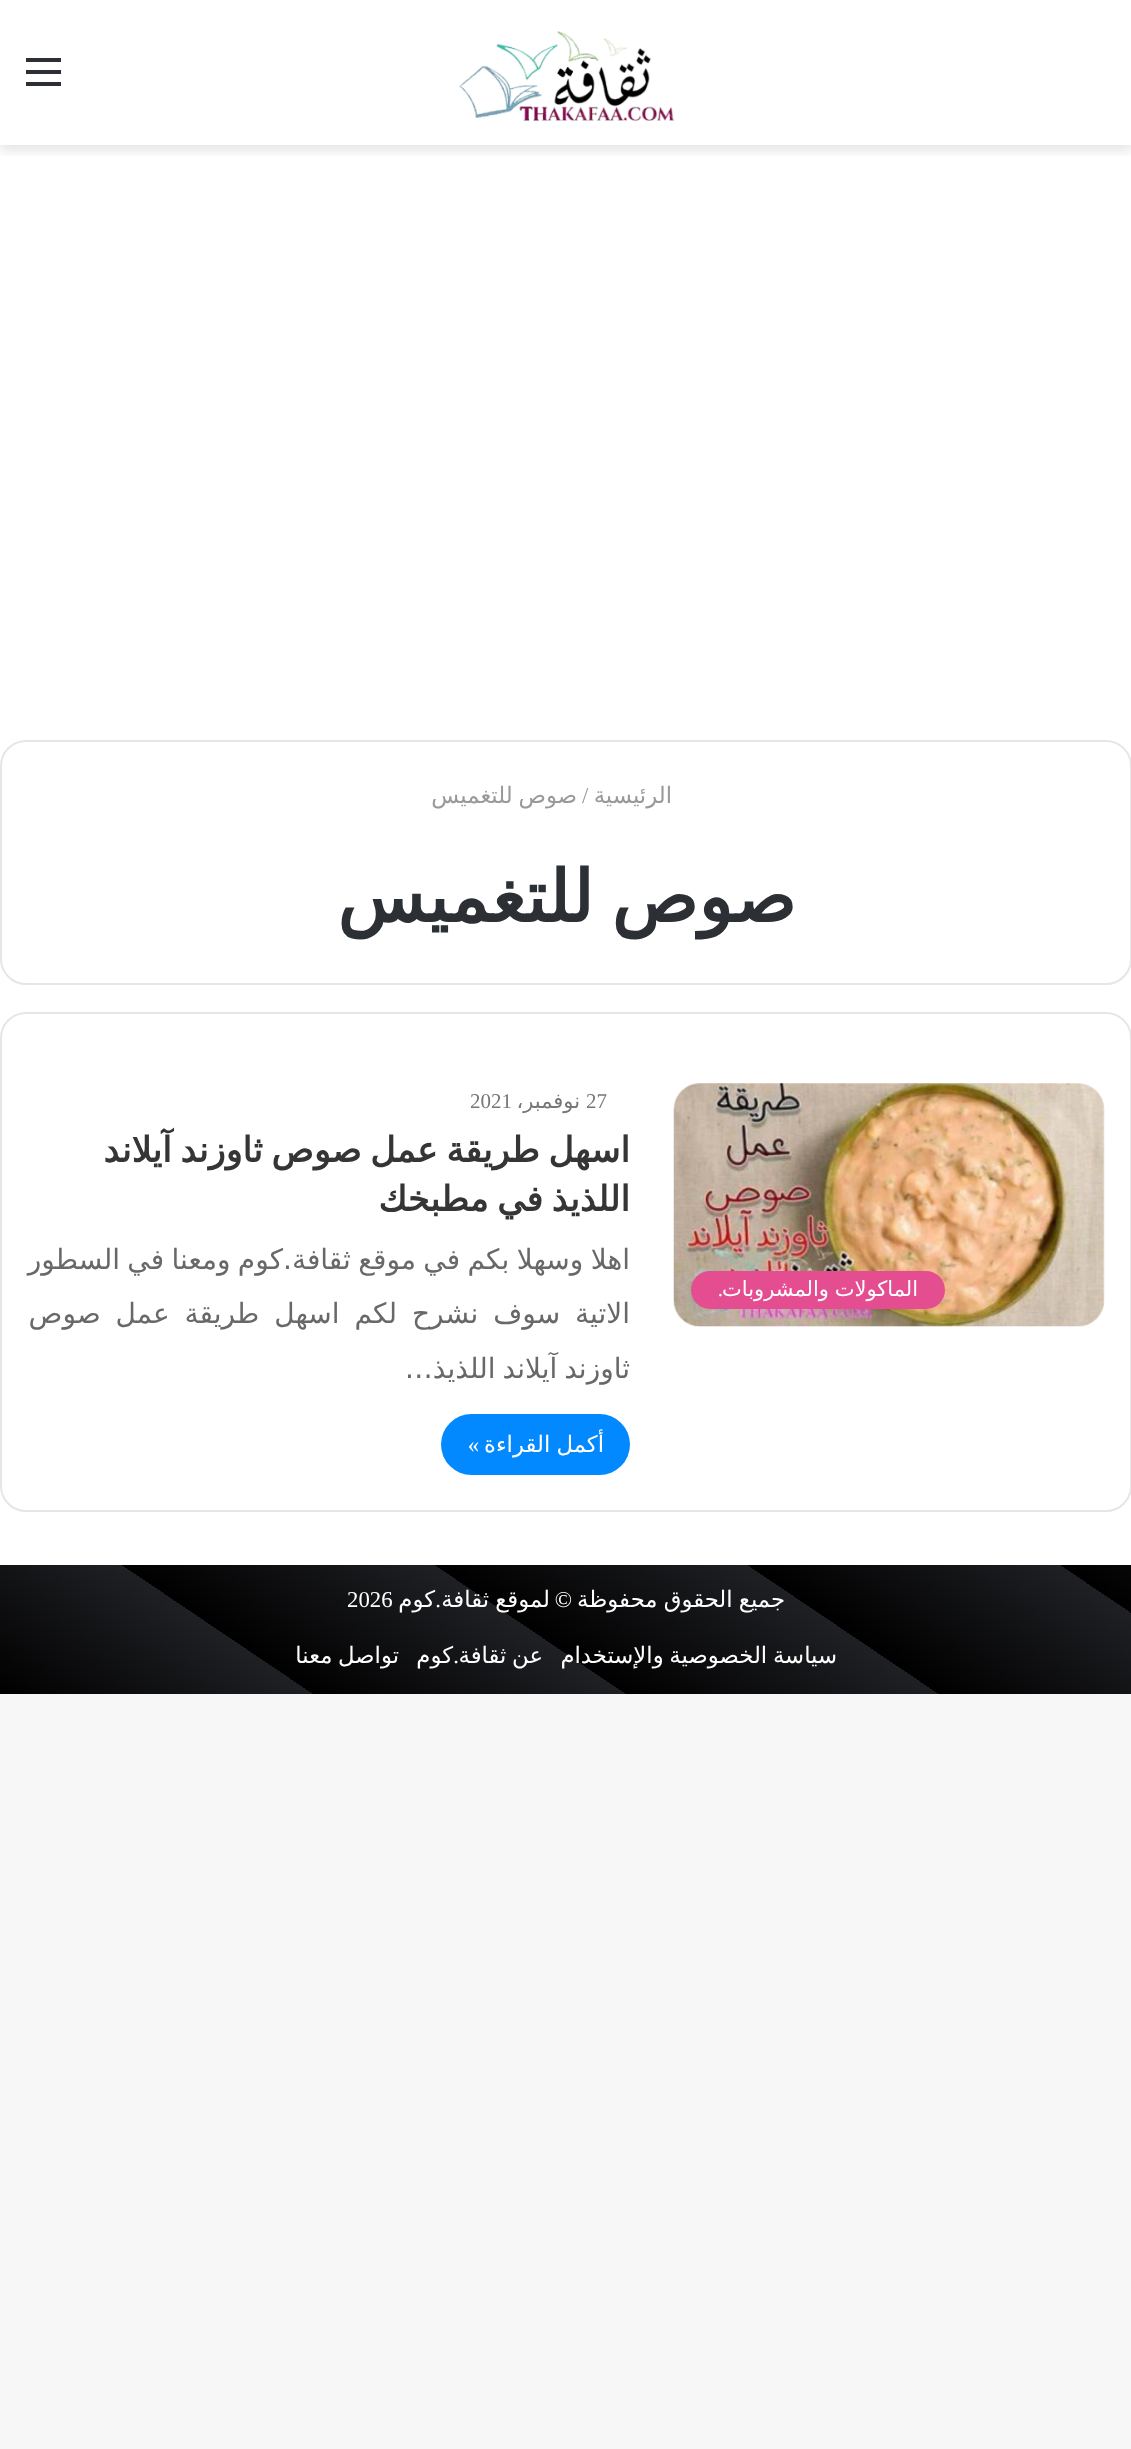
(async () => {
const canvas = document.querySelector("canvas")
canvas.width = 1131
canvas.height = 2449
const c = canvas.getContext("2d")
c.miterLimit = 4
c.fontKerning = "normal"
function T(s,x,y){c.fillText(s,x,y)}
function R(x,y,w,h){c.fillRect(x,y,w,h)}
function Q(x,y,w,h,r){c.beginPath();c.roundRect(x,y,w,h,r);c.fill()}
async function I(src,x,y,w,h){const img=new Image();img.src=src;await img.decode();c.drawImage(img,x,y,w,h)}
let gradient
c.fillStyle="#f7f7f7"
R(0,0,1131,2449)
c.fillStyle="#fff"
R(0,0,1131,1565)
c.save()
c.beginPath()
c.rect(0,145,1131,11)
c.clip()
c.fillStyle="#0000001a"
c.filter="blur(6px)"
c.beginPath()
c.rect(0,5,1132,146)
c.fill()
c.filter="none"
c.restore()
await I("1.png",459,31,216,90)
c.fillStyle="#2c2f34"
R(26,70,35,4)
R(26,58,35,4)
R(26,82,35,4)
c.beginPath()
c.roundRect(1,741,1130,243,25)
c.strokeStyle="#e6e6e6"
c.lineWidth=2
c.stroke()
c.direction="rtl"
c.font="22.75px DejaVu Sans"
c.fillStyle="#999"
T("الرئيسية",672,803)
c.direction="ltr"
c.font="22.75px Liberation Serif"
T("/",582,803)
c.wordSpacing="-1.5px"
c.direction="rtl"
c.font="22.75px DejaVu Sans"
T("صوص للتغميس",577,803)
c.wordSpacing="-5px"
c.font="bold 71.75px DejaVu Sans"
c.fillStyle="#2c2f34"
T("صوص للتغميس",796,922)
c.beginPath()
c.roundRect(1,1013,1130,498,25)
c.stroke()
await I("2.png",673,1083,432,244)
c.fillStyle="#e54d91"
Q(691,1271,254,38,19)
c.wordSpacing="-1px"
c.font="21px DejaVu Sans"
c.fillStyle="#fff"
T("الماكولات والمشروبات",918,1296)
c.wordSpacing="0px"
c.font="21px Liberation Serif"
T(".",723,1296)
c.direction="ltr"
c.fillStyle="#777"
T("27",586,1108)
c.direction="rtl"
c.font="21px DejaVu Sans"
T("نوفمبر،",580,1108)
c.direction="ltr"
c.font="21px Liberation Serif"
T("2021",470,1108)
c.wordSpacing="-2.5px"
c.direction="rtl"
c.font="bold 35px DejaVu Sans"
c.fillStyle="#353535"
T("اسهل طريقة عمل صوص ثاوزند آيلاند",630,1162)
T("اللذيذ في مطبخك",630,1211)
c.wordSpacing="-1.5px"
c.font="28px DejaVu Sans"
c.fillStyle="#686868"
T("اهلا وسهلا بكم في موقع ثقافة.كوم ومعنا في السطور",630,1269)
c.wordSpacing="6px"
T("الاتية سوف نشرح لكم اسهل طريقة عمل صوص",630,1323)
c.wordSpacing="-2px"
T("ثاوزند آيلاند اللذيذ…",630,1378)
c.fillStyle="#0389ff"
Q(441,1414,189,61,30.5)
c.wordSpacing="-1px"
c.font="22.75px DejaVu Sans"
c.fillStyle="#fff"
T("أكمل القراءة",604,1452)
c.wordSpacing="0px"
c.font="22.75px Liberation Serif"
T("»",479,1452)
gradient = c.createLinearGradient(359,1936,848,1211)
gradient.addColorStop(0,"#000")
gradient.addColorStop(.2,"#1f2024")
gradient.addColorStop(.2,"#000")
gradient.addColorStop(.4,"#1f2024")
gradient.addColorStop(.4,"#000")
gradient.addColorStop(.6,"#1f2024")
gradient.addColorStop(.6,"#000")
gradient.addColorStop(.8,"#1f2024")
gradient.addColorStop(.8,"#000")
gradient.addColorStop(1,"#1f2024")
c.fillStyle = gradient
R(0,1565,1131,129)
c.wordSpacing="-1px"
c.font="22.75px DejaVu Sans"
c.fillStyle="#fff"
T("جميع الحقوق محفوظة",785,1607)
c.wordSpacing="0px"
c.font="22.75px Liberation Serif"
T("©",572,1607)
c.font="22.75px DejaVu Sans"
T("لموقع",550,1607)
T("ثقافة",489,1607)
c.font="22.75px Liberation Serif"
T(".",441,1607)
c.font="22.75px DejaVu Sans"
T("كوم",435,1607)
c.direction="ltr"
c.font="22.75px Liberation Serif"
T("2026",347,1607)
c.wordSpacing="-1.5px"
c.direction="rtl"
c.font="22.75px DejaVu Sans"
T("سياسة الخصوصية والإستخدام",837,1663)
T("عن ثقافة",543,1663)
c.wordSpacing="0px"
c.font="22.75px Liberation Serif"
T(".",459,1663)
c.font="22.75px DejaVu Sans"
T("كوم",453,1663)
c.wordSpacing="-1.5px"
T("تواصل معنا",399,1663)
})()
